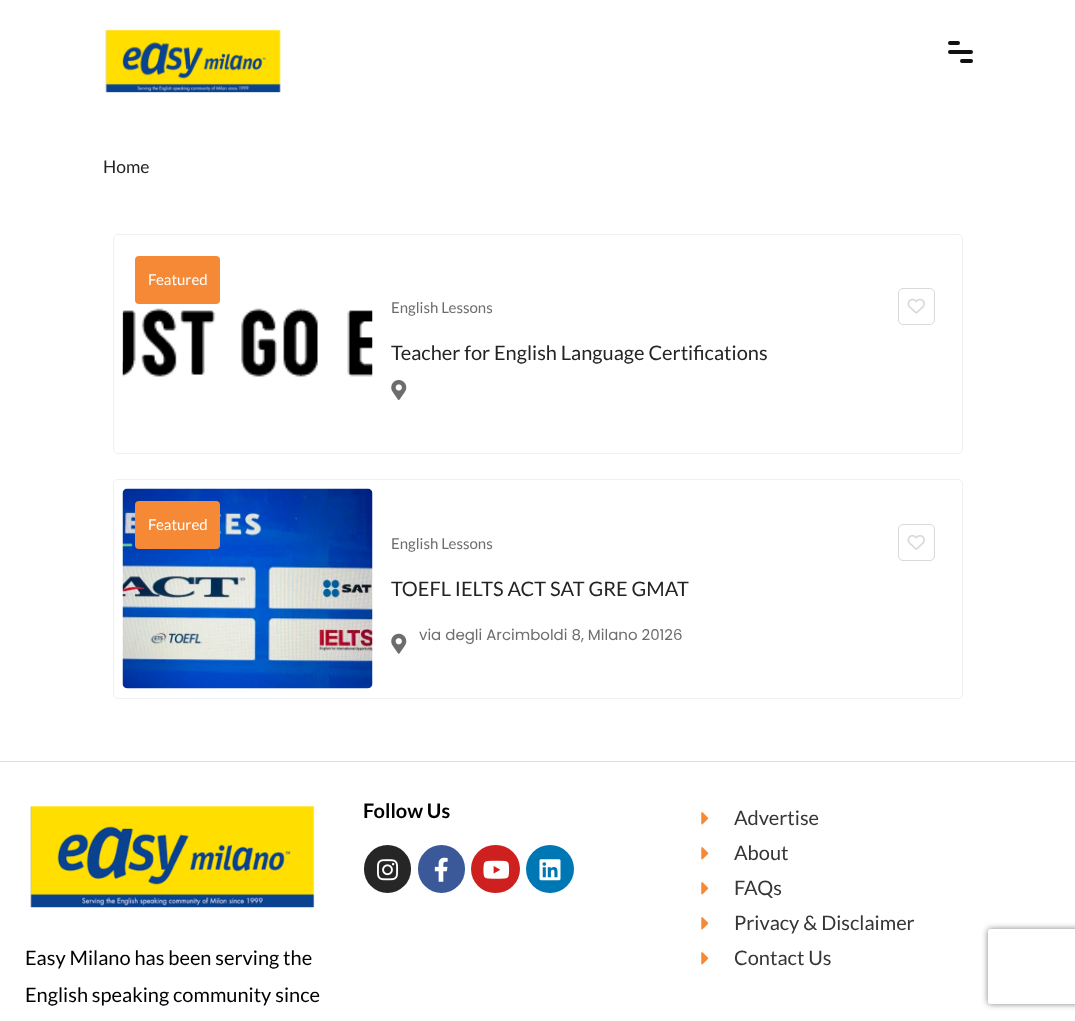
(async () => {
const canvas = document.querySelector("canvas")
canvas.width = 1075
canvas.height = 1021
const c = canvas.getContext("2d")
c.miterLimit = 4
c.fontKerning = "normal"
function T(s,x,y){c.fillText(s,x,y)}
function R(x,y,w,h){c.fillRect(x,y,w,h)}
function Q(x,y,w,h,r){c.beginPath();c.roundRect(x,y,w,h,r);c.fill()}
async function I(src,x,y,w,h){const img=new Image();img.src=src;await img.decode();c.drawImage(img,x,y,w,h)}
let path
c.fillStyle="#fff"
R(0,0,1075,1021)
await I("1.png",105,29,176,64)
c.fillStyle="#111"
Q(948,41,12,4,2)
Q(948,50,25,4,2)
Q(960,59,13,4,2)
c.font="17.5px Lato"
c.fillStyle="#242424"
T("Home",103,173)
c.beginPath()
c.roundRect(113.5,234.5,849,219,4.5)
c.strokeStyle="#f0f0f0"
c.stroke()
c.fillStyle="#f68936"
Q(135,256,85,48,4)
c.font="15px Lato"
c.fillStyle="#fff"
T("Featured",148,285)
await I("2.png",122,308,251,69)
c.fillStyle="#6d6d6d"
T("English Lessons",391,313)
c.beginPath()
c.roundRect(898.5,288.5,36,36,4.5)
c.strokeStyle="#d9d9d9"
c.stroke()
await I("3.png",907,298,18,16)
c.font="20px Lato"
c.fillStyle="#242424"
T("Teacher for English Language Certifications",391,360)
await I("4.png",391,380,16,20)
c.beginPath()
c.roundRect(113.5,479.5,849,219,4.5)
c.strokeStyle="#f0f0f0"
c.stroke()
await I("5.png",122,488,251,201)
c.fillStyle="#f68936"
Q(135,501,85,48,4)
c.font="15px Lato"
c.fillStyle="#fff"
T("Featured",148,530)
c.fillStyle="#6d6d6d"
T("English Lessons",391,549)
c.beginPath()
c.roundRect(898.5,524.5,36,36,4.5)
c.strokeStyle="#d9d9d9"
c.stroke()
await I("6.png",907,535,18,15)
c.font="20px Lato"
c.fillStyle="#242424"
T("TOEFL IELTS ACT SAT GRE GMAT",391,596)
await I("7.png",391,633,16,21)
c.font="15px Poppins"
c.fillStyle="#6d6d6d"
T("via degli Arcimboldi 8, Milano 20126",419,640)
c.fillStyle="#ddd"
R(0,761,1075,1)
c.font="bold 20px Lato"
c.fillStyle="#000"
T("Follow Us",363,818)
c.fillStyle="#262626"
Q(364,845,47,48,23.5)
await I("8.png",377,859,22,22)
c.fillStyle="#3b5998"
Q(418,845,47,48,23.5)
await I("9.png",434,857,14,25)
c.fillStyle="#cd201f"
Q(471,845,49,48,24)
await I("10.png",483,860,27,19)
c.fillStyle="#0077b5"
c.beginPath()
c.arc(550,869,24,0,7)
c.fill()
await I("11.png",539,859,22,22)
await I("12.png",701,812,8,13)
c.font="20px Lato"
c.fillStyle="#363636"
T("Advertise",734,825)
await I("12.png",701,847,8,13)
T("About",734,860)
await I("12.png",701,882,8,13)
T("FAQs",734,895)
await I("12.png",701,917,8,13)
T("Privacy & Disclaimer",734,930)
await I("12.png",701,952,8,13)
T("Contact Us",734,965)
await I("13.png",30,806,285,102)
c.fillStyle="#000"
T("Easy Milano has been serving the",25,965)
T("English speaking community since",25,1002)
c.save()
path = new Path2D("M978 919h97v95h-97zm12.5 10h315c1.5 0 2.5 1 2.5 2.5v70c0 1.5-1 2.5-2.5 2.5h-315c-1.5 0-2.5-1-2.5-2.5v-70c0-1.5 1-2.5 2.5-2.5z")
c.clip(path,"evenodd")
c.fillStyle="#808080"
c.filter="blur(3px)"
c.beginPath()
c.roundRect(988,929,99,75,2.5)
c.fill()
c.filter="none"
c.restore()
})()
